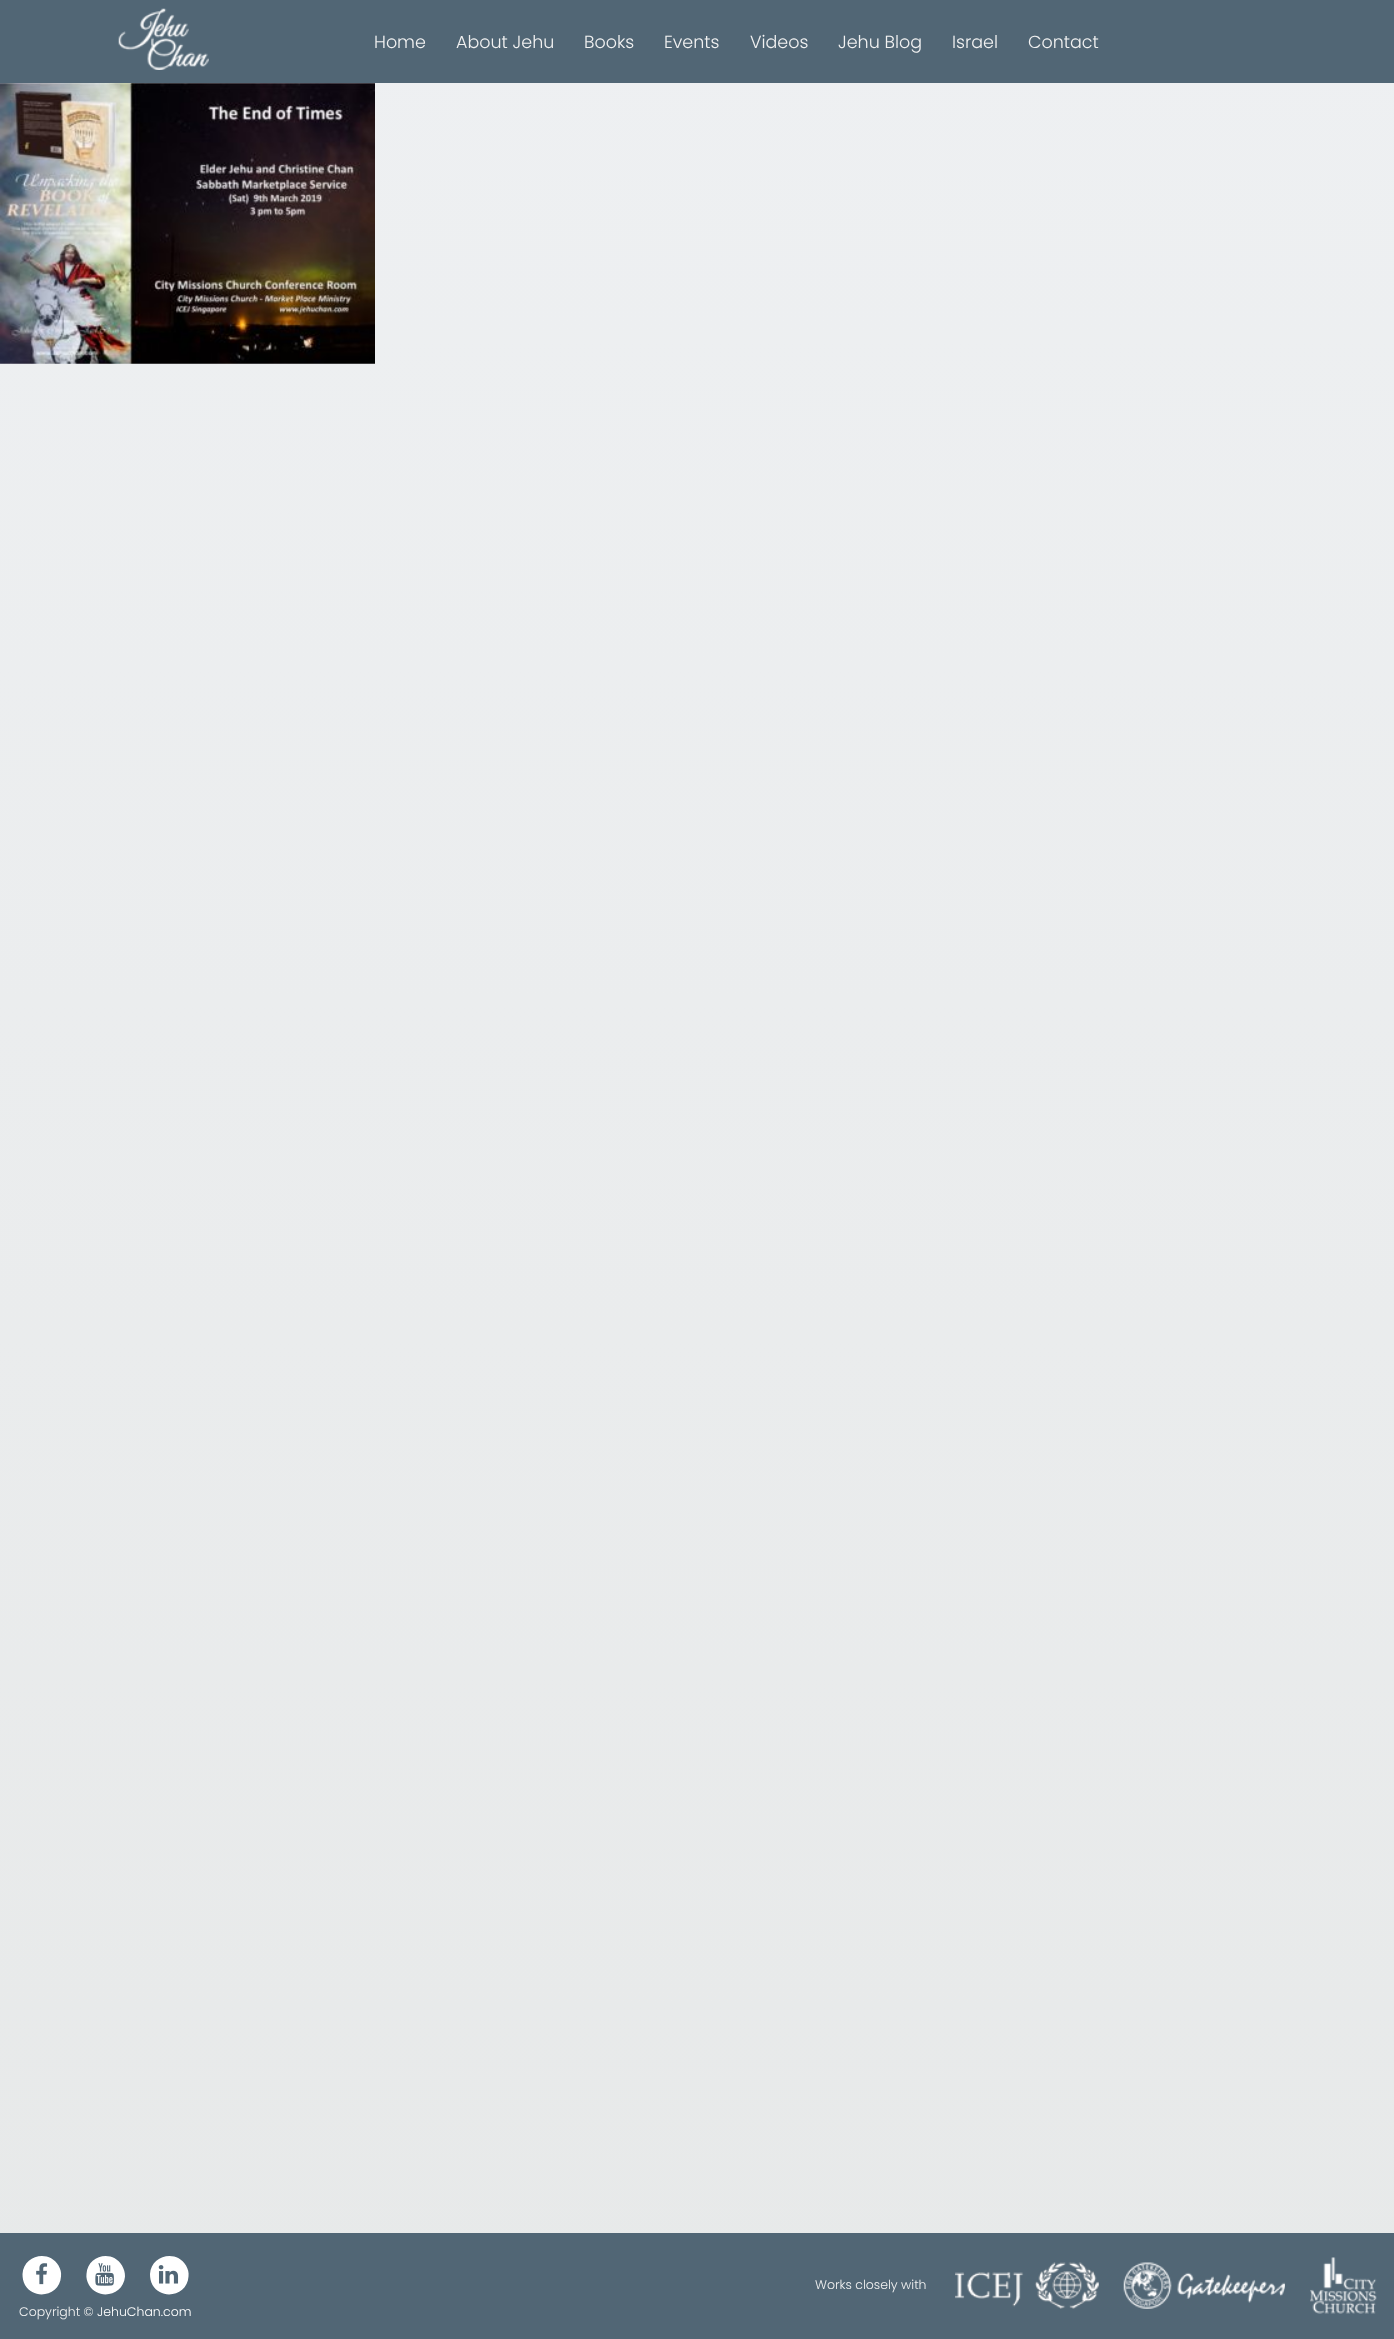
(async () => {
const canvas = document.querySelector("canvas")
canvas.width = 1394
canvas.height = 2339
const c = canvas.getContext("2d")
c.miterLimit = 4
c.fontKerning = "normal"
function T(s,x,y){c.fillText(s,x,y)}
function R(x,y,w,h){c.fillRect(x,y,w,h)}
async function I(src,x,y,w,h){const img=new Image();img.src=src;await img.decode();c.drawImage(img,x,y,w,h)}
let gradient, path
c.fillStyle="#fff"
R(0,0,1394,2339)
gradient = c.createLinearGradient(698,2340,698,0)
gradient.addColorStop(0,"#e7e9e9")
gradient.addColorStop(1,"#eef0f2")
c.fillStyle = gradient
R(0,83,1394,2150)
c.fillStyle="#516675"
R(0,0,1394,83)
await I("1.png",118,8,91,62)
c.font="300 17.5px Poppins"
c.fillStyle="#f2f2f2"
T("Home",374,48)
T("About Jehu",456,48)
T("Books",584,48)
T("Events",664,48)
T("Videos",750,48)
T("Jehu Blog",838,48)
T("Israel",952,48)
T("Contact",1028,48)
await I("2.png",0,83,375,281)
c.fillStyle="#516675"
R(0,2233,1394,106)
c.font="300 12.5px Poppins"
c.fillStyle="#f2f2f2"
T("Works closely with",815,2289)
await I("3.png",955,2262,144,47)
await I("4.png",1123,2262,162,47)
await I("5.png",1310,2257,67,57)
c.fillStyle="#fff"
path = new Path2D("M58.5 2265.5c2 3.5 3 7 2.5 11c-1 19-26.5 24.5-36 8.5c-2-3.5-2.5-7.5-2.5-11c1-19 26.5-25 36-8.5z")
c.fill(path)
await I("6.png",36,2263,12,22)
path = new Path2D("M122 2265.5c2 3.5 3 7 3 11c-1.5 19-26.5 24.5-36 8.5c-2-3.5-3-7.5-2.5-11c1-19 26-25 35.5-8.5z")
c.fill(path)
await I("7.png",95,2263,19,23)
path = new Path2D("M186 2265.5c2 3.5 3 7 2.5 11c-1 19-26.5 24.5-36 8.5c-2-3.5-2.5-7.5-2.5-11c1-19 26.5-25 36-8.5z")
c.fill(path)
await I("8.png",158,2265,21,19)
c.fillStyle="#f2f2f2"
T("Copyright ©",19,2316)
c.fillStyle="#fff"
T("JehuChan.com",97,2316)
})()
